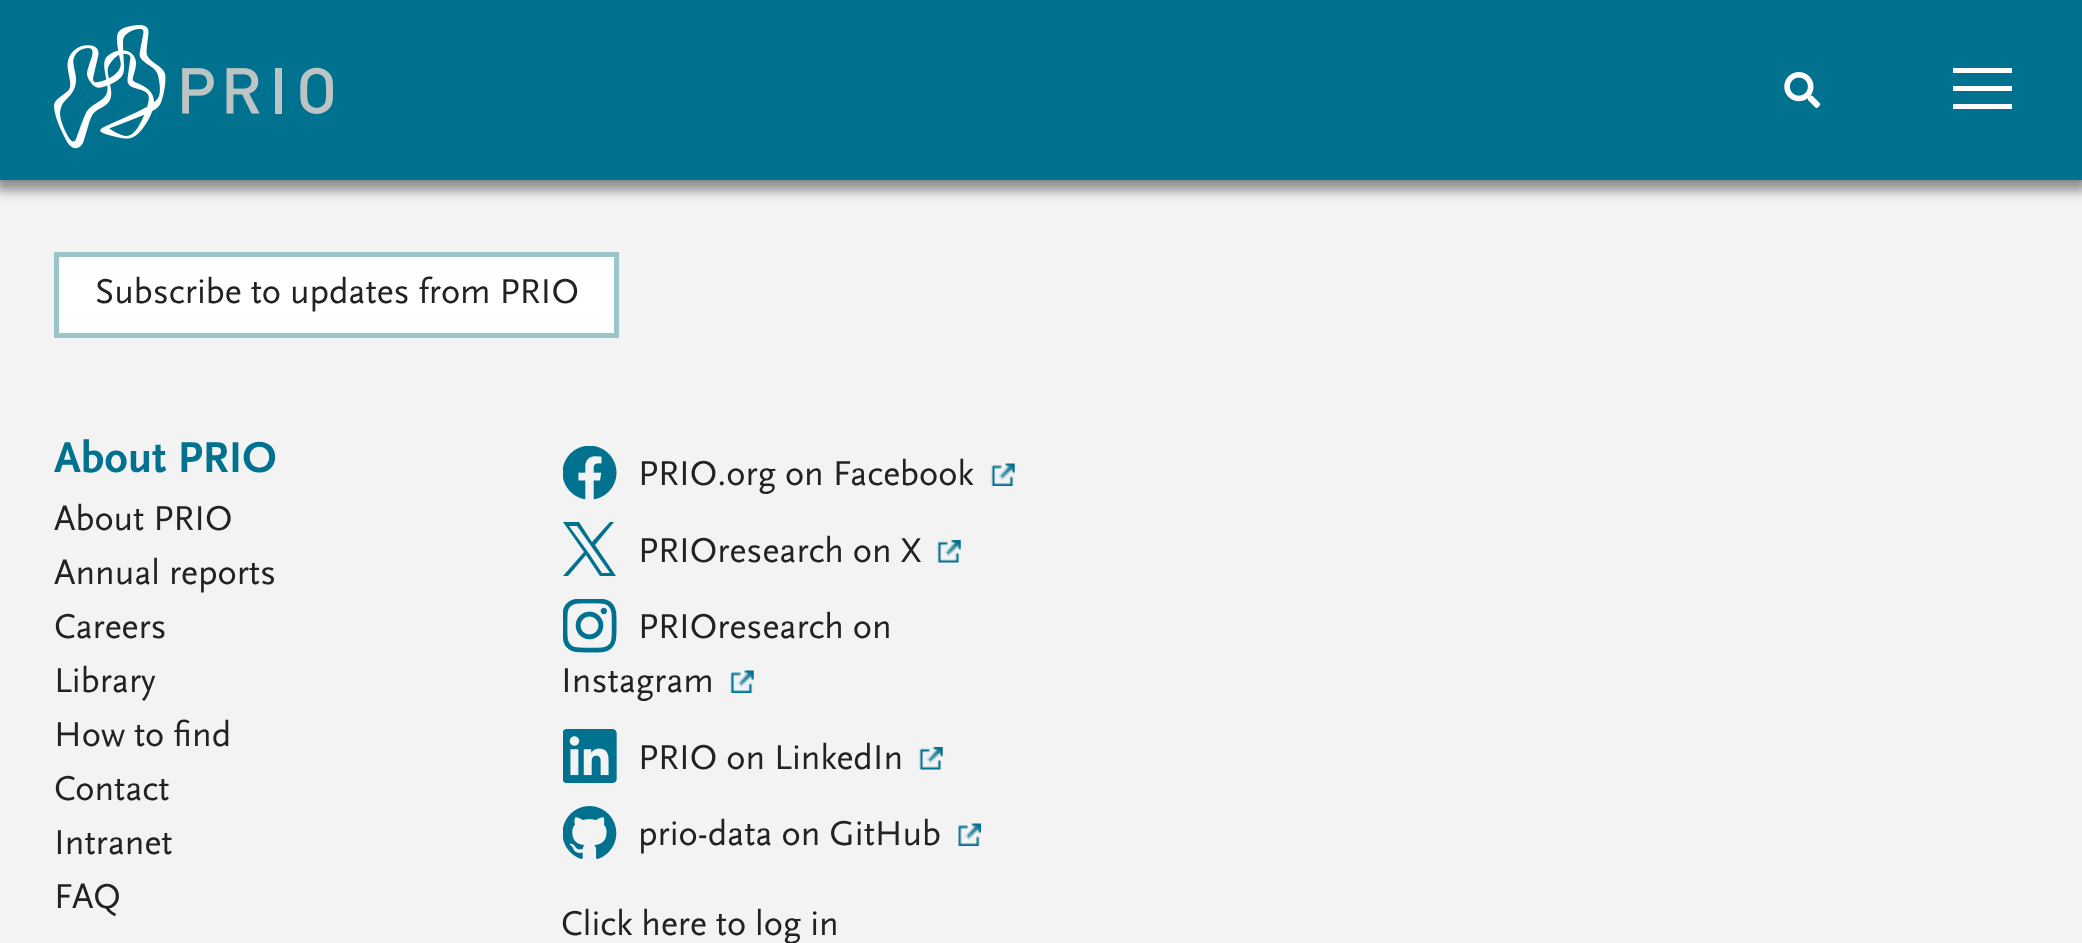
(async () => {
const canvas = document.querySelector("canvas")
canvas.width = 2082
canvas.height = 943
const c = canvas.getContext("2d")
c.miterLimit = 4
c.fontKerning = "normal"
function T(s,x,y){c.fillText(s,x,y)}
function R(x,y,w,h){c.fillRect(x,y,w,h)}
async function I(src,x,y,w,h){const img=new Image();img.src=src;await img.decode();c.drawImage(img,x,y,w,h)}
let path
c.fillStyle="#f3f3f3"
R(0,0,2082,943)
c.strokeStyle="#0a0a0a14"
c.lineWidth=2
c.strokeRect(-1,-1,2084,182)
c.fillStyle="#32323280"
c.filter="blur(5.5px)"
c.beginPath()
c.rect(-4,5,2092,186)
c.fill()
c.filter="none"
c.fillStyle="#00718f"
R(0,0,2082,180)
await I("1.png",54,25,279,124)
await I("2.png",1784,72,37,36)
c.fillStyle="#fff"
R(1953,68,59,5)
R(1953,86,59,5)
R(1953,104,59,5)
c.beginPath()
c.rect(56.5,254.5,560,81)
c.fill()
c.strokeStyle="#9cc5ca"
c.lineWidth=5
c.stroke()
c.font="36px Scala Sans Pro"
c.fillStyle="#222"
T("Subscribe to updates from PRIO",95,303)
c.font="bold 45px Scala Sans Pro"
c.fillStyle="#00718f"
T("About PRIO",54,472)
c.font="36px Scala Sans Pro"
c.fillStyle="#222"
T("About PRIO",54,530)
T("Annual reports",54,584)
T("Careers",54,638)
T("Library",54,692)
T("How to find",54,746)
T("Contact",54,800)
T("Intranet",54,854)
T("FAQ",54,908)
await I("3.png",563,446,54,54)
T("PRIO.org on Facebook",638,485)
await I("4.png",991,463,24,23)
c.fillStyle="#00718f"
path = new Path2D("M595 545l19-23h-4l-18 20l-13-20h-16l21 30l-21 24h5l18-21l14 21h16zm-7 7l-19-26h8l33 47h-8z")
c.fill(path)
c.fillStyle="#222"
T("PRIOresearch on X",638,562)
await I("5.png",937,540,24,23)
await I("6.png",563,599,54,54)
T("PRIOresearch on",638,638)
T("Instagram",561,692)
await I("4.png",730,670,24,23)
await I("7.png",563,729,54,54)
T("PRIO on LinkedIn",638,769)
await I("5.png",919,747,24,23)
await I("8.png",563,806,54,53)
T("prio-data on GitHub",638,845)
await I("9.png",958,823,23,23)
T("Click here to log in",561,935)
})()
